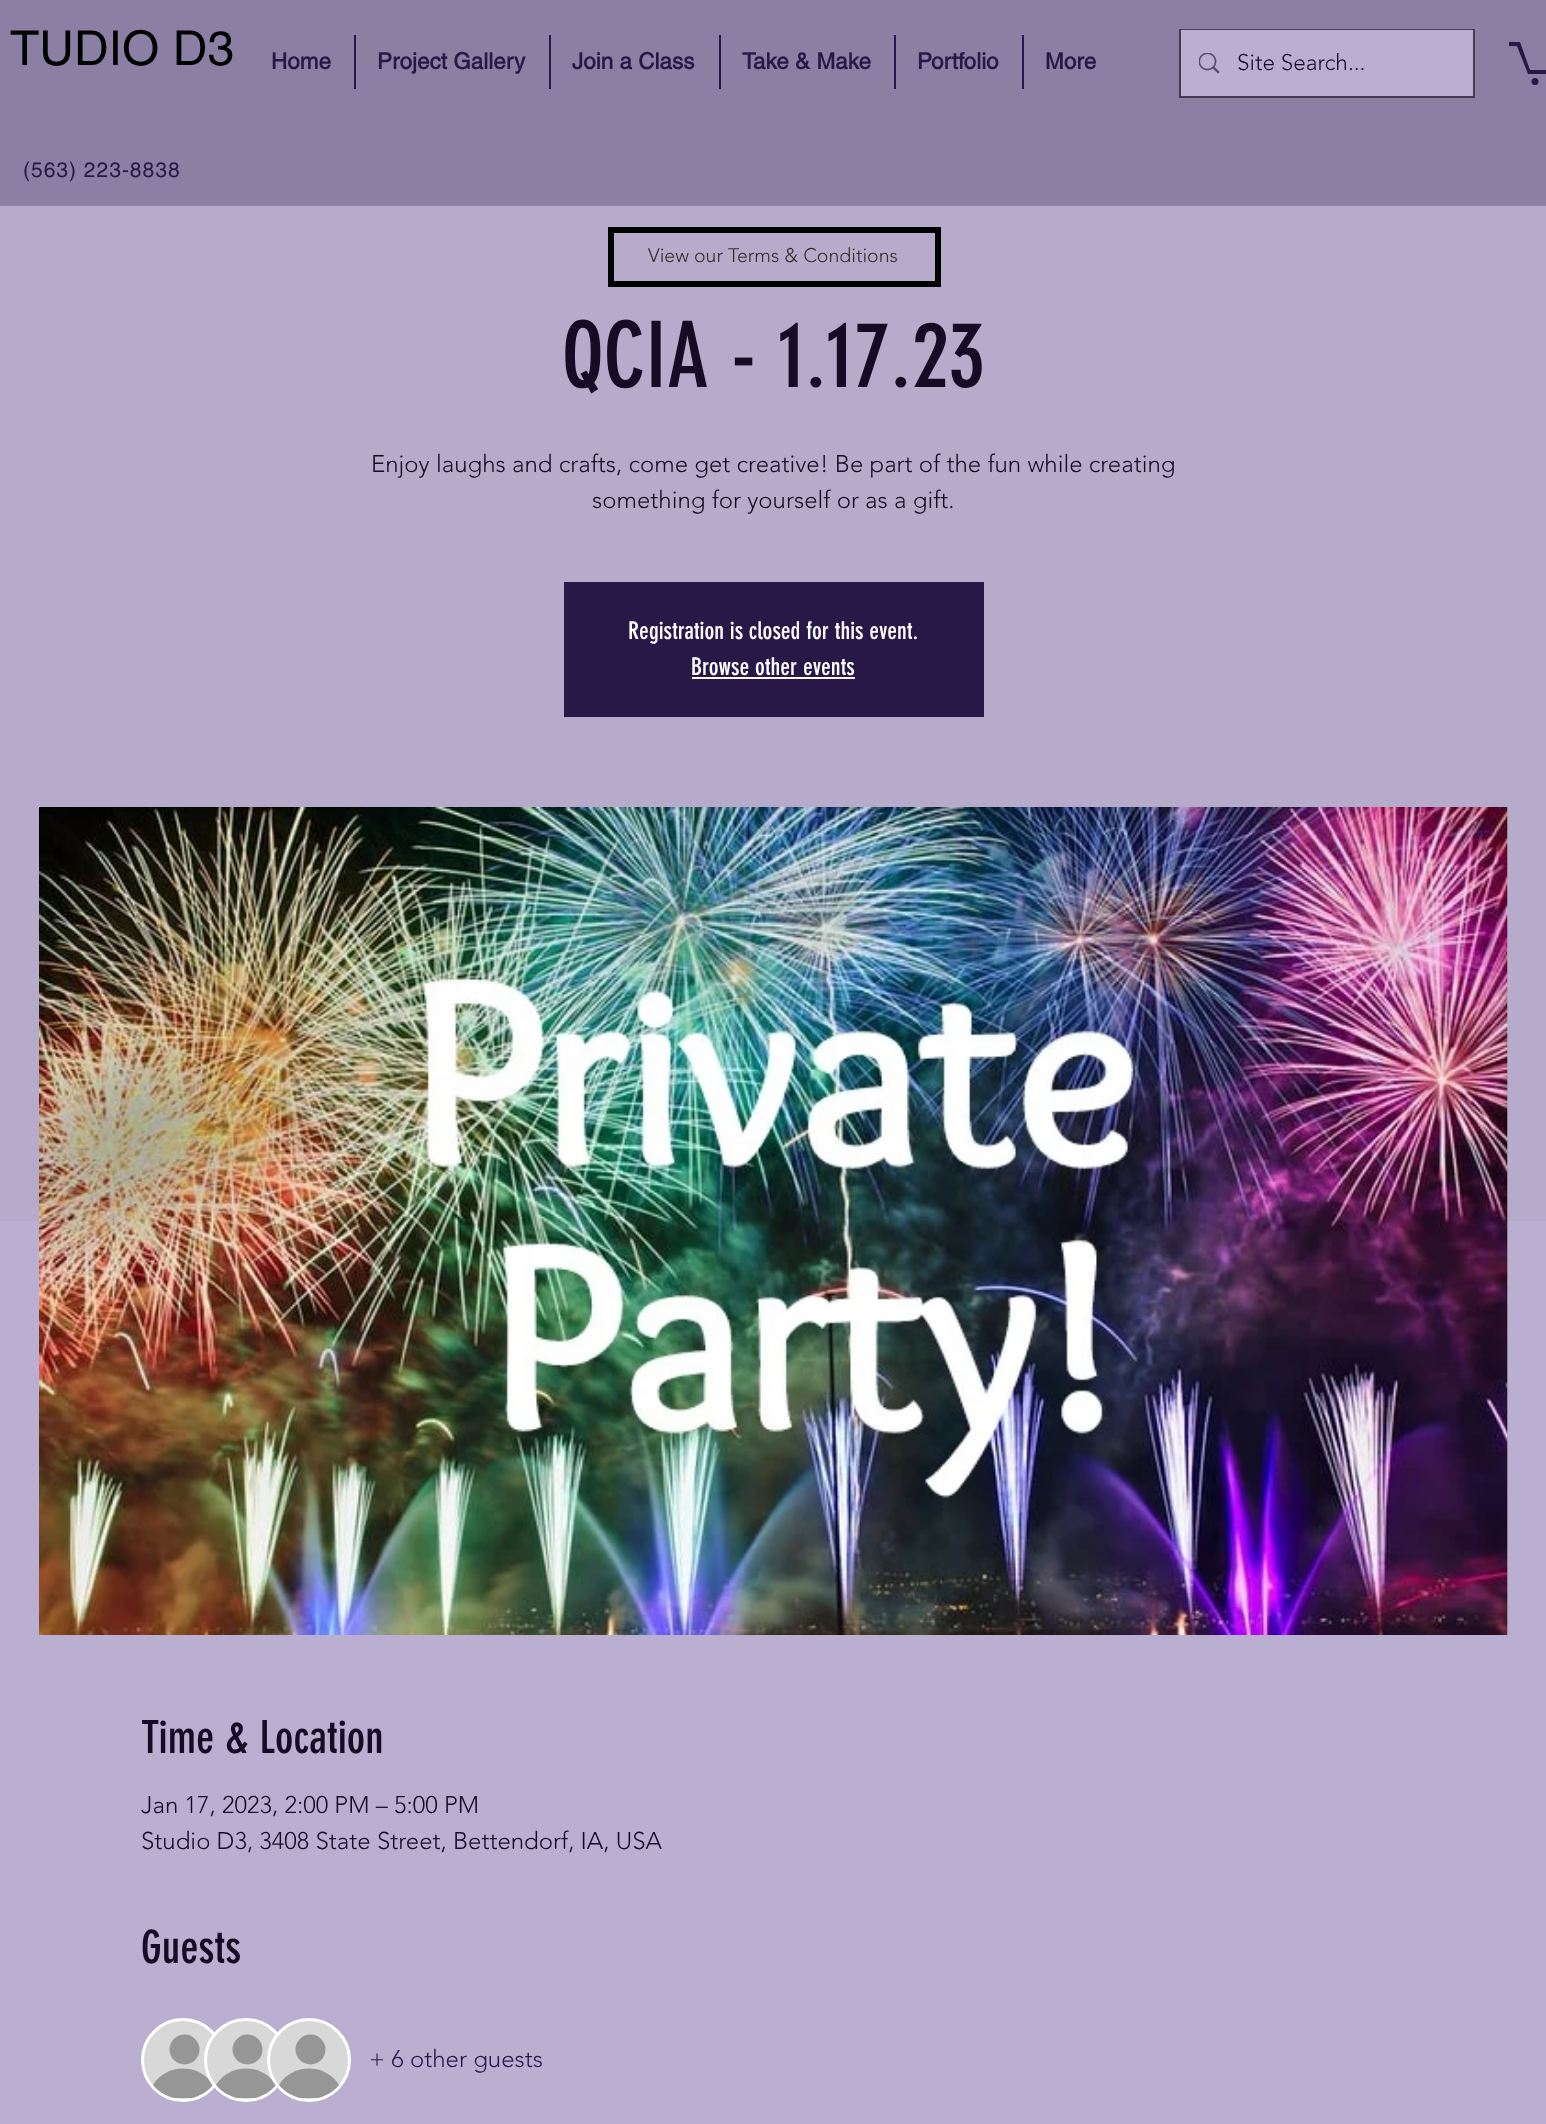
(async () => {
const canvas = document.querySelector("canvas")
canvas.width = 1546
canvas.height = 2124
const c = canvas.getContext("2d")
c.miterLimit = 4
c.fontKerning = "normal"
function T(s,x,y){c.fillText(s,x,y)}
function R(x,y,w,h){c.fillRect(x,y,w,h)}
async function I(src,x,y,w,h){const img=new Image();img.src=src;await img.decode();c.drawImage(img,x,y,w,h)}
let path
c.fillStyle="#baaed1"
R(0,0,1546,2124)
c.fillStyle="#8b7fa4"
R(0,0,1546,206)
c.font="48px helvetica"
c.fillStyle="#000"
T("TUDIO D3",10,65)
c.font="bold 22.5px helvetica"
c.fillStyle="#281848"
T("Home",271,69)
R(354,35,2,54)
T("Project Gallery",377,69)
R(549,35,2,54)
T("Join a Class",572,69)
R(719,35,2,54)
T("Take & Make",742,69)
R(894,35,2,54)
T("Portfolio",917,69)
R(1022,35,2,54)
T("More",1045,69)
c.strokeStyle="#443a57"
c.lineWidth=2
c.strokeRect(1180,30,294,67)
c.fillStyle="#baaed1"
R(1181,30,292,66)
await I("1.png",1199,53,21,21)
c.font="300 22.5px 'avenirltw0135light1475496'"
c.fillStyle="#140c24"
T("Site Search...",1237,70)
c.fillStyle="#281848"
path = new Path2D("M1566 54l-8 20h-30l-11-28h-8v-4h11l10 28h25l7-16")
c.fill(path)
c.beginPath()
c.arc(1535,81.5,3.5,0,7)
c.fill()
c.letterSpacing="1px"
c.font="21px helvetica"
T("(563) 223-8838",23,177)
c.fillStyle="#b7abcb"
R(0,206,1546,1015)
c.strokeStyle="#000"
c.lineWidth=6
c.strokeRect(611,230,327,54)
c.letterSpacing="0px"
c.font="300 19.5px 'avenirltw0135light1475496'"
c.fillStyle="#2f2e2e"
T("View our Terms & Conditions",648,262)
c.font="90px 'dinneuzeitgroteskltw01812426'"
c.fillStyle="#140c24"
T("QCIA - 1.17.23",562,387)
c.font="300 24px 'avenirltw0135light1475496'"
T("Enjoy laughs and crafts, come get creative! Be part of the fun while creating",371,472)
T("something for yourself or as a gift.",592,508)
c.fillStyle="#281848"
R(564,582,420,135)
c.font="24px 'dinneuzeitgroteskltw01812426'"
c.fillStyle="#fff"
T("Registration is closed for this event.",628,639)
T("Browse other events",691,675)
R(692,677,163,2)
c.fillStyle="#acacab"
R(1507,807,1,828)
await I("2.png",39,807,1469,828)
c.font="45px 'dinneuzeitgroteskltw01812426'"
c.fillStyle="#140c24"
T("Time & Location",141,1753)
c.font="300 24px 'avenirltw0135light1475496'"
T("Jan 17, 2023, 2:00 PM – 5:00 PM",141,1813)
T("Studio D3, 3408 State Street, Bettendorf, IA, USA",141,1849)
c.font="45px 'dinneuzeitgroteskltw01812426'"
T("Guests",141,1963)
c.fillStyle="#d8d8d8"
c.beginPath()
c.arc(183,2060,40.5,0,7)
c.fill()
c.strokeStyle="#fff"
c.lineWidth=3
c.stroke()
c.fillStyle="#969696"
c.beginPath()
c.arc(184.5,2049.5,15,0,7)
c.fill()
path = new Path2D("M174 2098c-8-2-15-6-21-13c13-22 47-22 60 0c-6 7-13 11-21 13z")
c.fill(path)
c.fillStyle="#d8d8d8"
c.beginPath()
c.arc(246,2060,40.5,0,7)
c.fill()
c.stroke()
c.fillStyle="#969696"
c.beginPath()
c.arc(247.5,2049.5,15,0,7)
c.fill()
path = new Path2D("M237 2098c-8-2-15-6-21-13c13-22 47-22 60 0c-6 7-13 11-21 13z")
c.fill(path)
c.fillStyle="#d8d8d8"
c.beginPath()
c.arc(309,2060,40.5,0,7)
c.fill()
c.stroke()
c.fillStyle="#969696"
c.beginPath()
c.arc(310.5,2049.5,15,0,7)
c.fill()
path = new Path2D("M300 2098c-8-2-15-6-21-13c13-22 47-22 60 0c-6 7-13 11-21 13z")
c.fill(path)
c.font="300 24px 'avenirltw0135light1475496'"
c.fillStyle="#281848"
T("+ 6 other guests",369,2067)
})()
